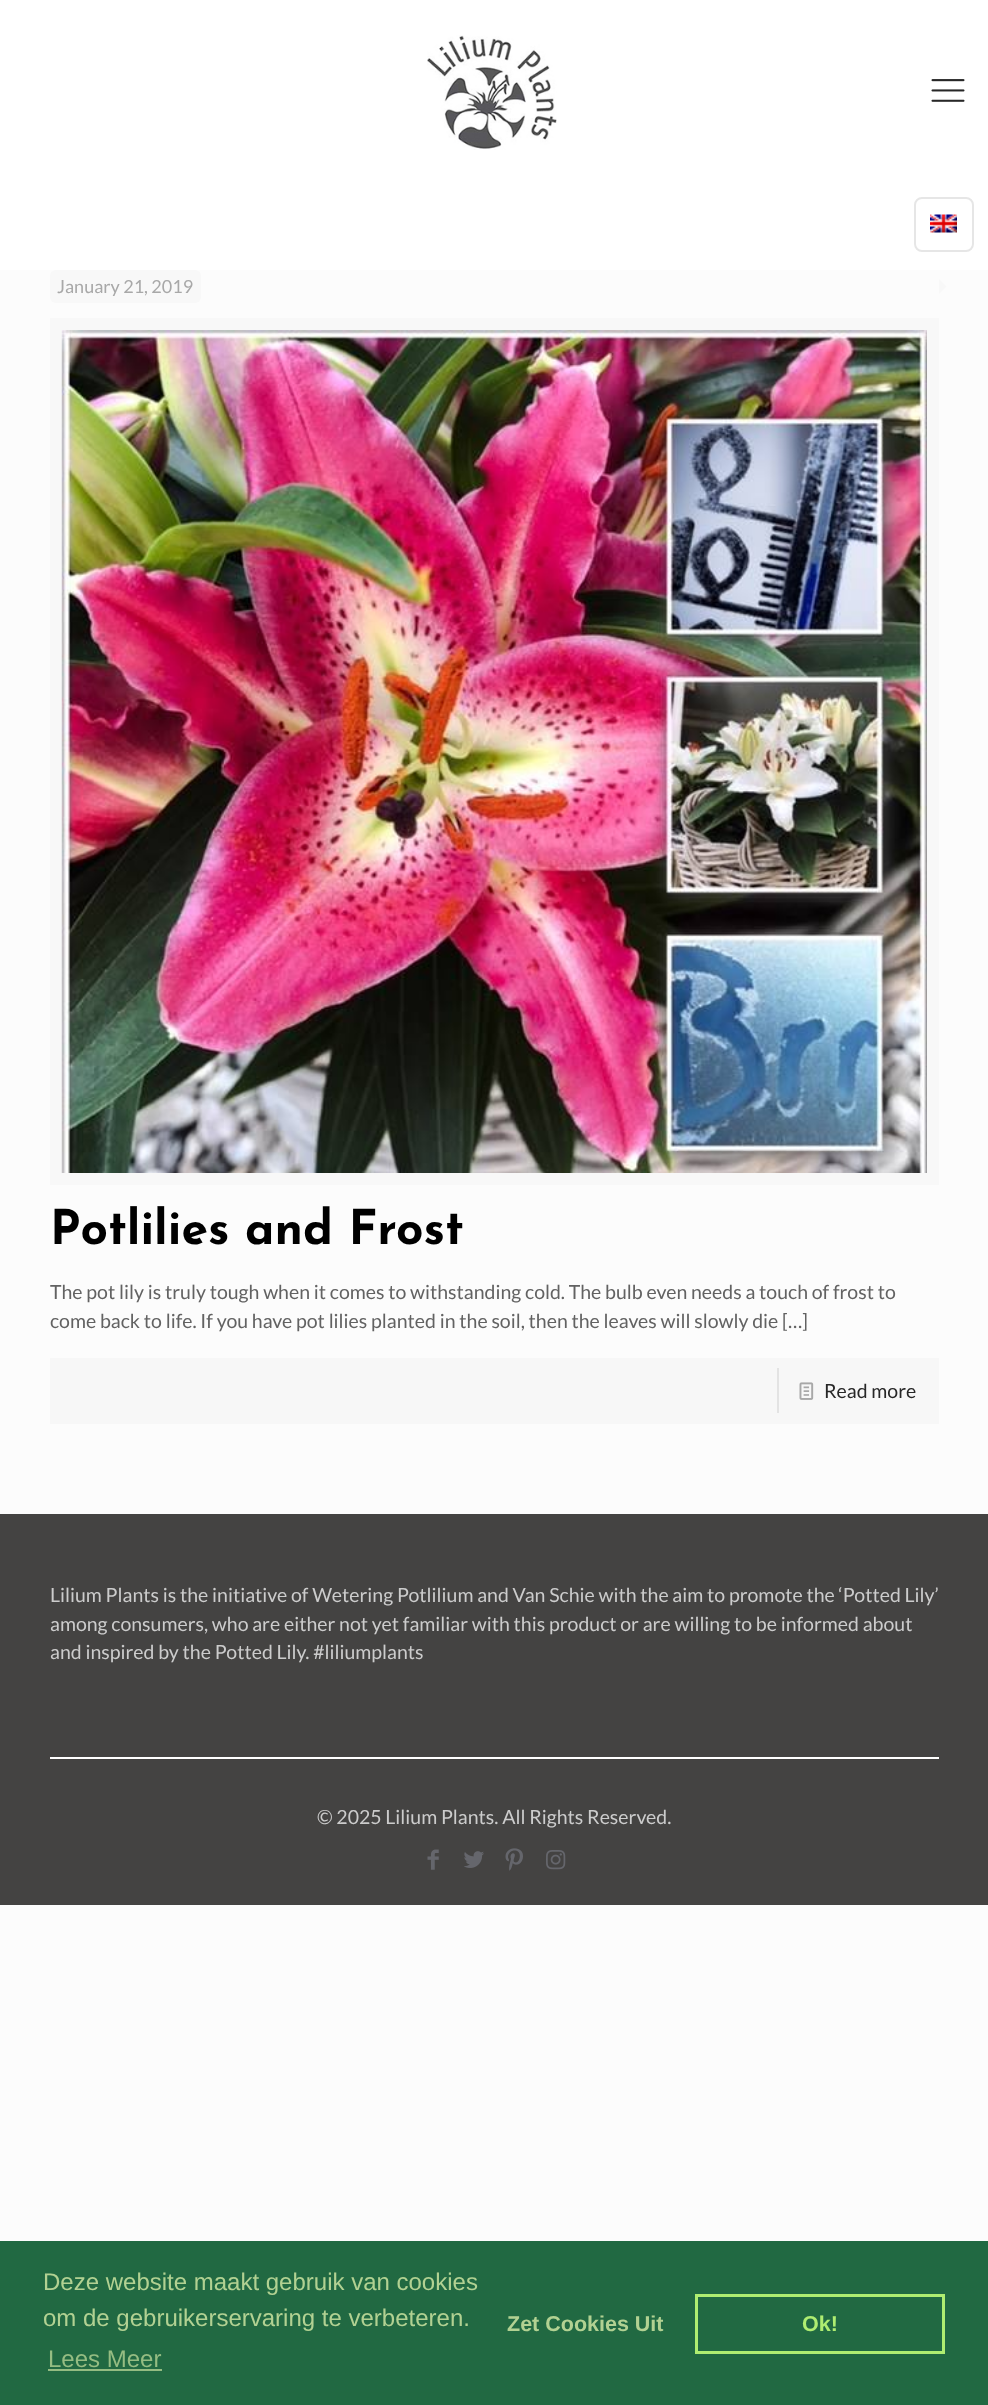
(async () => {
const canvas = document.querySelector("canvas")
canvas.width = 988
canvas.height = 2405
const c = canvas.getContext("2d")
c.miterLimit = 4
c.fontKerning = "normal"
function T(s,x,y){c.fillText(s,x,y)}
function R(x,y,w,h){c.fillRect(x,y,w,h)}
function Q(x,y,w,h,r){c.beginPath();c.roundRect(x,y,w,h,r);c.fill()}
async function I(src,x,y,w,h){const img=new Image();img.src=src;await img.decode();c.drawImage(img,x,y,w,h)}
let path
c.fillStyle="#fcfcfc"
R(0,0,988,2405)
c.fillStyle="#fff"
R(0,0,988,270)
await I("1.png",427,35,130,115)
await I("2.png",931,79,34,23)
c.beginPath()
c.roundRect(915,198,58,53,7)
c.strokeStyle="#e6e6e6"
c.lineWidth=2
c.stroke()
await I("3.png",930,214,27,19)
c.fillStyle="#f8f8f8"
Q(50,270,151,33,6)
c.font="18px Lato"
c.fillStyle="#a8a8a8"
T("January 21, 2019",57,293)
c.fillStyle="#f8f8f8"
path = new Path2D("M939 294v-15l7.5 7.5z")
c.fill(path)
c.strokeStyle="#f8f8f8"
c.lineWidth=12
c.strokeRect(56,324,877,855)
await I("4.png",61,330,866,843)
c.font="bold 48px Josefin Sans"
c.fillStyle="#000"
T("Potlilies and Frost",50,1244)
c.font="19.5px Lato"
c.fillStyle="#626262"
T("The pot lily is truly tough when it comes to withstanding cold. The bulb even needs a touch of frost to",50,1299)
T("come back to life. If you have pot lilies planted in the soil, then the leaves will slowly die […]",50,1328)
c.fillStyle="#f7f7f7"
R(50,1358,889,66)
c.fillStyle="#e3e3e3"
R(777,1368,2,45)
await I("5.png",799,1382,15,18)
c.fillStyle="#272727"
T("Read more",824,1398)
c.fillStyle="#444342"
R(0,1514,988,391)
c.fillStyle="#ccc"
T("Lilium Plants is the initiative of Wetering Potlilium and Van Schie with the aim to promote the ‘Potted Lily’",50,1602)
T("among consumers, who are either not yet familiar with this product or are willing to be informed about",50,1631)
T("and inspired by the Potted Lily. #liliumplants",50,1659)
c.fillStyle="#fff"
R(50,1757,889,2)
c.fillStyle="#ccc"
T("© 2025 Lilium Plants. All Rights Reserved.",317,1824)
await I("6.png",427,1849,12,21)
await I("7.png",464,1851,20,17)
await I("8.png",505,1848,18,23)
await I("9.png",546,1850,20,20)
c.fillStyle="#216942"
R(0,2241,988,164)
c.font="24px Liberation Sans"
c.fillStyle="#b2d192"
T("Deze website maakt gebruik van cookies",43,2290)
T("om de gebruikerservaring te verbeteren.",43,2326)
c.fillStyle="#95bc82"
T("Lees Meer",48,2367)
R(48,2369,114,2)
c.font="bold 21.5px Liberation Sans"
c.fillStyle="#b2d192"
T("Zet Cookies Uit",507,2331)
c.strokeStyle="#afed71"
c.lineWidth=3
c.strokeRect(696.5,2295.5,247,57)
c.fillStyle="#afed71"
T("Ok!",802,2331)
})()
